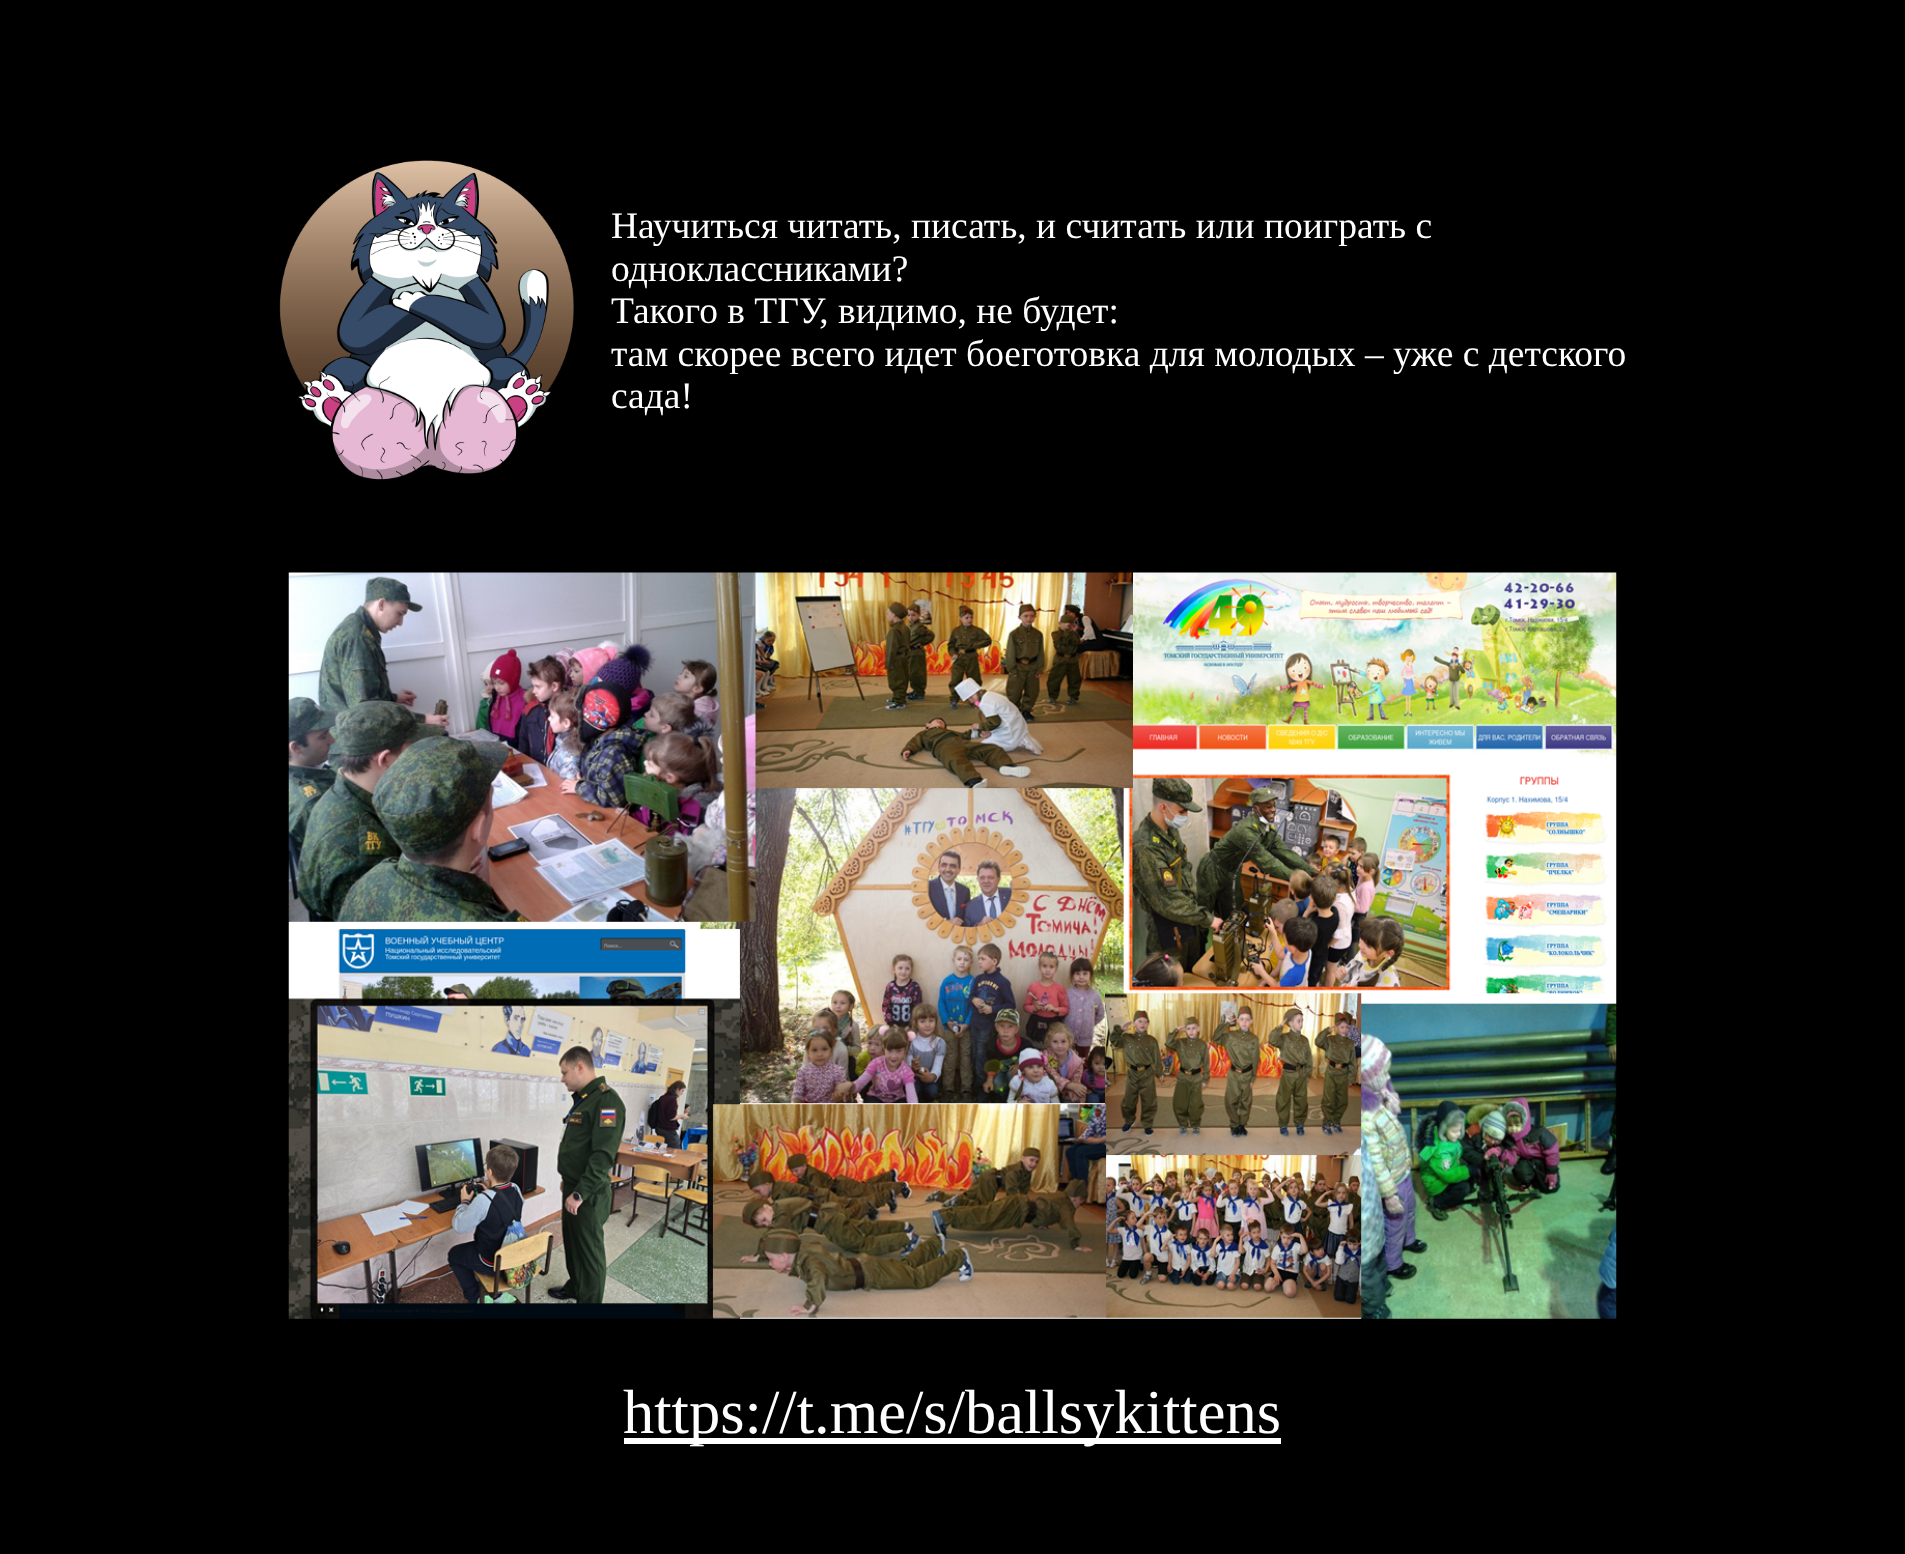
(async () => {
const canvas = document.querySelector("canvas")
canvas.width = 1905
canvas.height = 1554
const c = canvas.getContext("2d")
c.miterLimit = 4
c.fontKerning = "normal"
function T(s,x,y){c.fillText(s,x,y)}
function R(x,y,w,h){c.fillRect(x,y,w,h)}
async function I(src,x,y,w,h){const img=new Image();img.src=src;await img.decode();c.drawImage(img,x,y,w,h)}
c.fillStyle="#000"
R(0,0,1905,1554)
await I("1.png",279,160,295,320)
c.font="37.5px Liberation Serif"
c.fillStyle="#fff"
T("Научиться читать, писать, и считать или поиграть с",611,238)
T("одноклассниками?",611,281)
T("Такого в ТГУ, видимо, не будет:",611,323)
T("там скорее всего идет боеготовка для молодых – уже с детского",611,366)
T("сада!",611,408)
await I("2.png",288,572,1329,747)
R(624,1438,657,6)
c.font="62.5px Liberation Serif"
T("https://t.me/s/ballsykittens",623,1433)
})()
